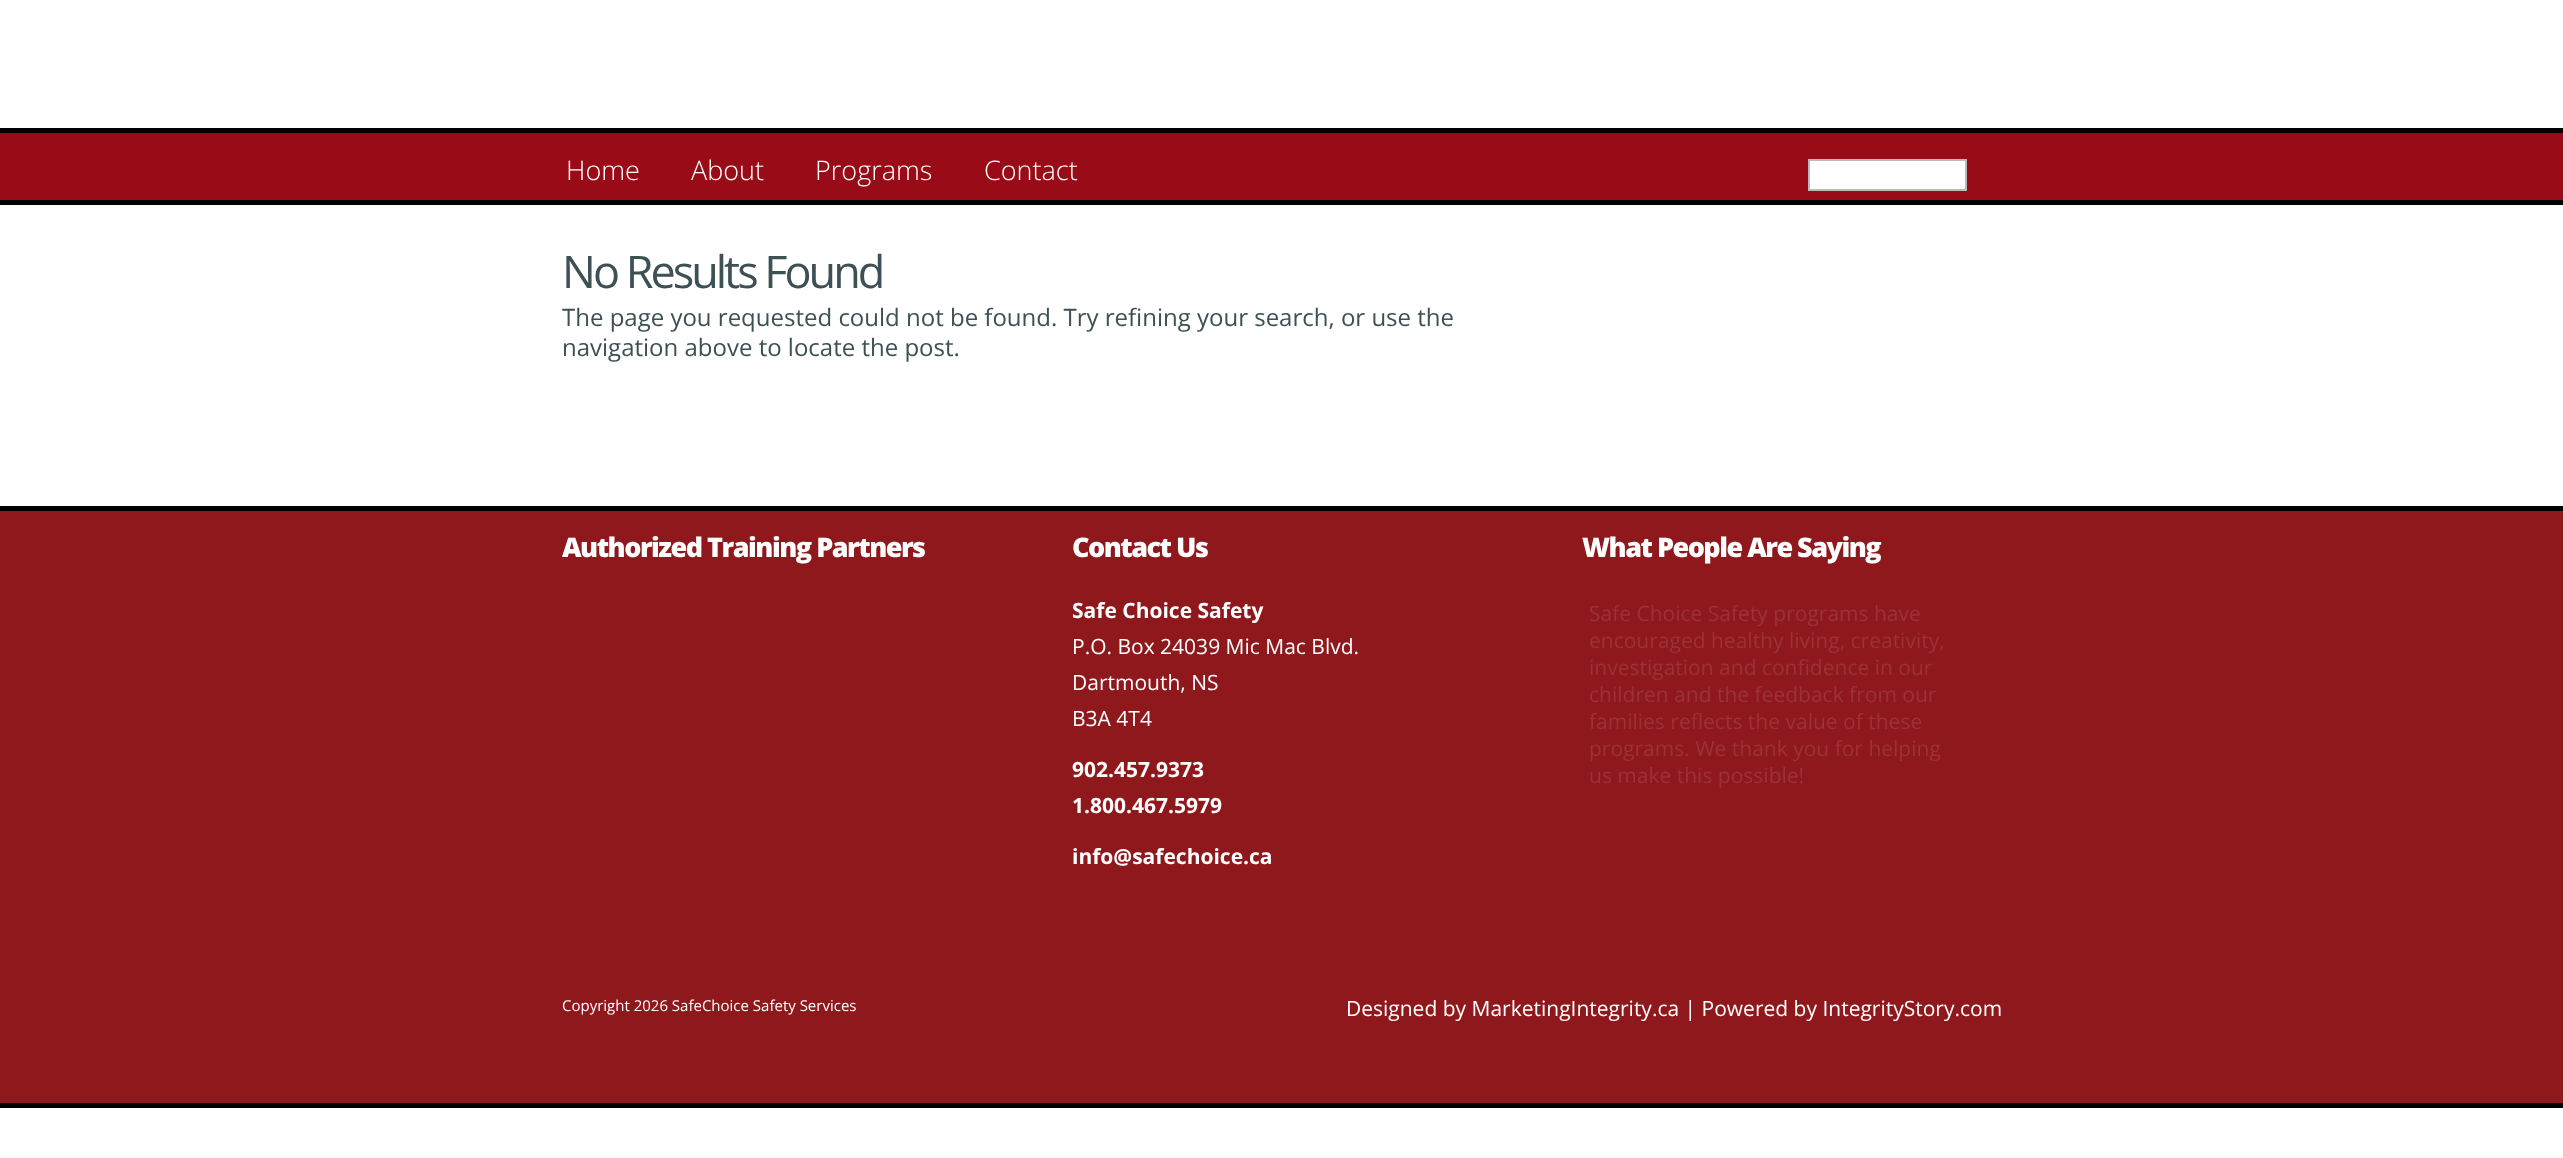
(async () => {
const canvas = document.querySelector("canvas")
canvas.width = 2563
canvas.height = 1158
const c = canvas.getContext("2d")
c.miterLimit = 4
c.fontKerning = "normal"
function T(s,x,y){c.fillText(s,x,y)}
function R(x,y,w,h){c.fillRect(x,y,w,h)}
c.fillStyle="#fff"
R(0,0,2563,1158)
c.fillStyle="#000"
R(0,128,2563,5)
c.fillStyle="#990b16"
R(0,133,2563,67)
c.fillStyle="#000"
R(0,200,2563,5)
c.font="300 27px Open Sans"
c.fillStyle="#fff"
T("Home",566,180)
T("About",691,180)
T("Programs",815,180)
T("Contact",984,180)
c.beginPath()
c.rect(1809,160,157,30)
c.fill()
c.strokeStyle="#bbb"
c.lineWidth=2
c.stroke()
c.letterSpacing="-3px"
c.font="45px Open Sans"
c.fillStyle="#3d5054"
T("No Results Found",562,288)
c.letterSpacing="0px"
c.font="24px Open Sans"
T("The page you requested could not be found. Try refining your search, or use the",562,326)
T("navigation above to locate the post.",562,356)
c.fillStyle="#8f181c"
R(0,511,2563,592)
c.fillStyle="#000"
R(0,506,2563,5)
R(0,1103,2563,5)
c.letterSpacing="-1.5px"
c.font="800 27px Open Sans"
c.fillStyle="#fff"
T("Authorized Training Partners",562,557)
T("Contact Us",1072,557)
c.letterSpacing="0px"
c.font="bold 21px Open Sans"
T("Safe Choice Safety",1072,618)
c.font="21px Open Sans"
T("P.O. Box 24039 Mic Mac Blvd.",1072,654)
T("Dartmouth, NS",1072,690)
T("B3A 4T4",1072,726)
c.font="bold 21px Open Sans"
T("902.457.9373",1072,777)
T("1.800.467.5979",1072,813)
T("info@safechoice.ca",1072,864)
c.letterSpacing="-1.5px"
c.font="800 27px Open Sans"
T("What People Are Saying",1582,557)
c.letterSpacing="0px"
c.font="21px Open Sans"
c.fillStyle="#9b3235"
T("Safe Choice Safety programs have",1589,621)
T("encouraged healthy living, creativity,",1589,648)
T("investigation and confidence in our",1589,675)
T("children and the feedback from our",1589,702)
T("families reflects the value of these",1589,729)
T("programs. We thank you for helping",1589,756)
T("us make this possible!",1589,783)
c.font="15px Open Sans"
c.fillStyle="#fff"
T("Copyright 2026 SafeChoice Safety Services",562,1011)
c.font="21px Open Sans"
T("Designed by MarketingIntegrity.ca | Powered by IntegrityStory.com",1346,1016)
})()
